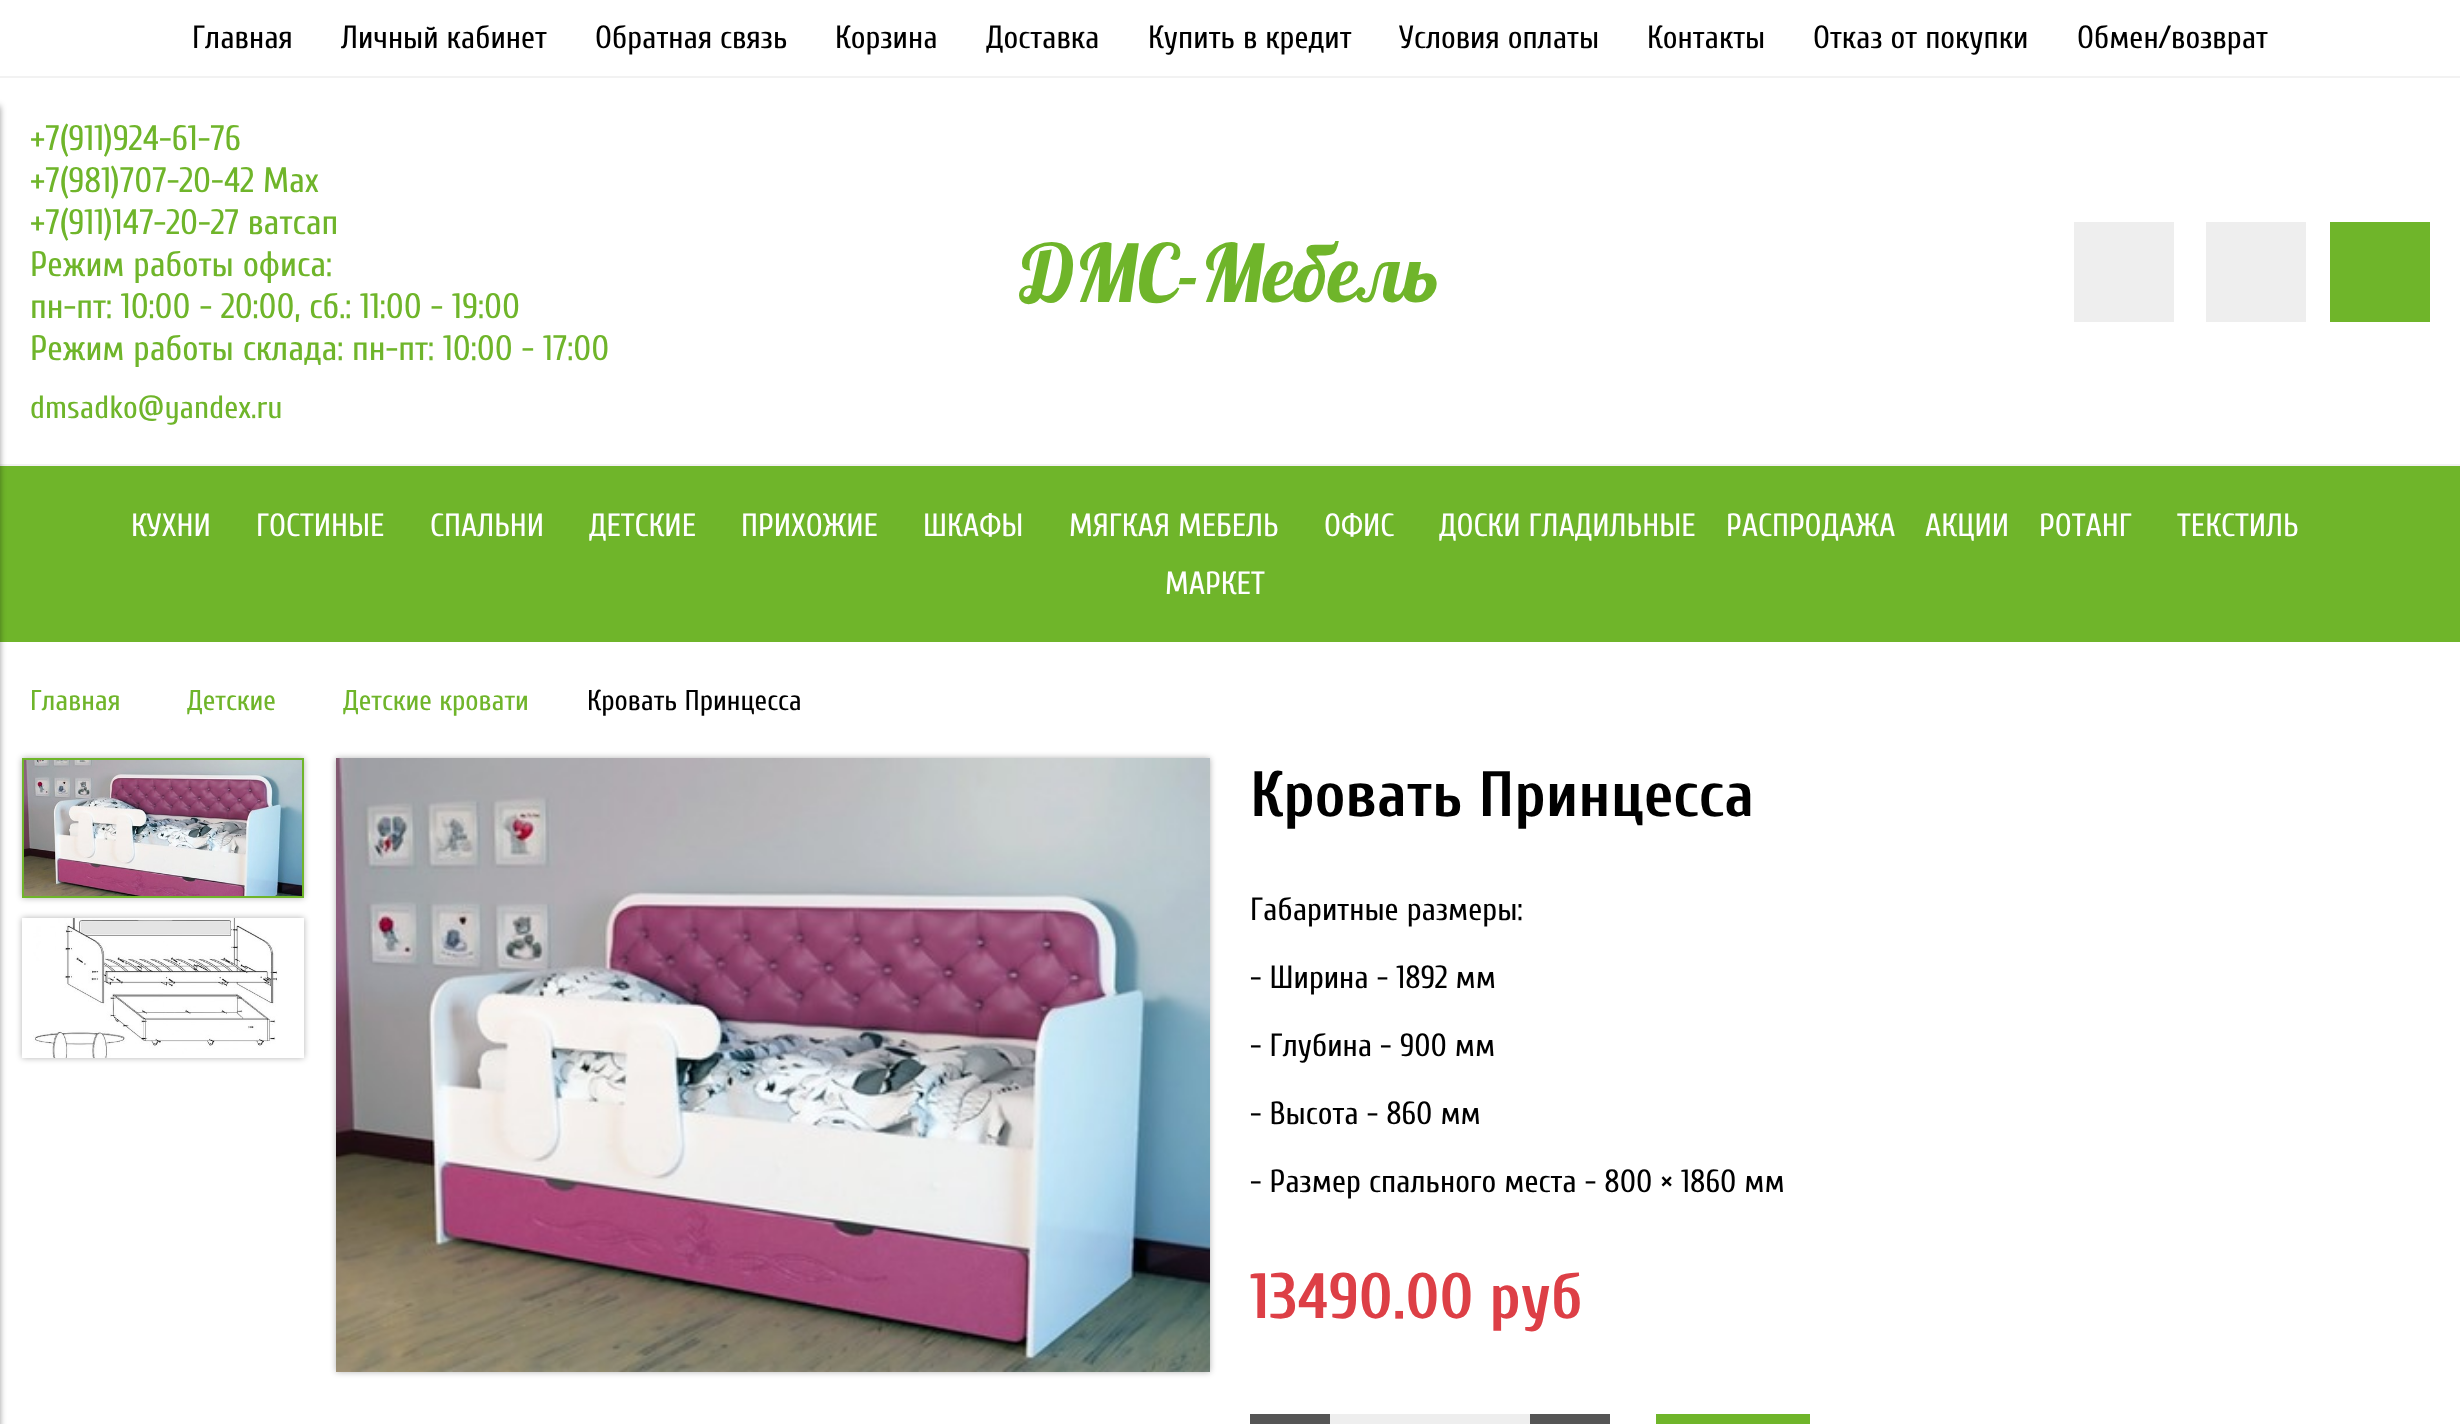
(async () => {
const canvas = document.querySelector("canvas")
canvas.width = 2460
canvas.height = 1424
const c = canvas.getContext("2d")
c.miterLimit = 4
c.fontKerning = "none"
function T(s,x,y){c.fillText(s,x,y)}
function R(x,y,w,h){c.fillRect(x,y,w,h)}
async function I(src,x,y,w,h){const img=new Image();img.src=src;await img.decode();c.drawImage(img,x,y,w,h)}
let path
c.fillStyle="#fff"
R(0,0,2460,1424)
c.fillStyle="#f2f2f2"
R(0,464,2460,2)
c.fillStyle="#6fb52a"
R(0,466,2460,176)
c.fillStyle="#00000066"
c.filter="blur(3px)"
c.beginPath()
c.rect(-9,106,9,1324)
c.fill()
c.filter="none"
c.fillStyle="#f2f2f2"
R(0,76,2460,2)
c.font="32px Cuprum"
c.fillStyle="#000"
T("Главная",192,48)
T("Личный кабинет",341,48)
T("Обратная связь",595,48)
T("Корзина",835,48)
T("Доставка",986,48)
T("Купить в кредит",1148,48)
T("Условия оплаты",1399,48)
T("Контакты",1647,48)
T("Отказ от покупки",1813,48)
T("Обмен/возврат",2077,48)
c.font="35.25px Cuprum"
c.fillStyle="#6fb52a"
T("+7(911)924-61-76",30,150)
T("+7(981)707-20-42 Max",30,192)
T("+7(911)147-20-27 ватсап",30,234)
T("Режим работы офиса:",30,276)
T("пн-пт: 10:00 - 20:00, сб.: 11:00 - 19:00",30,318)
T("Режим работы склада: пн-пт: 10:00 - 17:00",30,360)
c.font="32px Cuprum"
T("dmsadko@yandex.ru",30,418)
c.font="80px Lobster"
T("ДМС-Мебель",1021,302)
c.fillStyle="#eee"
R(2074,222,100,100)
R(2206,222,100,100)
c.fillStyle="#6fb52a"
R(2330,222,100,100)
c.font="32px Cuprum"
c.fillStyle="#fff"
T("КУХНИ",131,536)
T("ГОСТИНЫЕ",256,536)
T("СПАЛЬНИ",430,536)
T("ДЕТСКИЕ",589,536)
T("ПРИХОЖИЕ",741,536)
T("ШКАФЫ",923,536)
T("МЯГКАЯ МЕБЕЛЬ",1069,536)
T("ОФИС",1324,536)
T("ДОСКИ ГЛАДИЛЬНЫЕ",1439,536)
T("РАСПРОДАЖА",1726,536)
T("АКЦИИ",1925,536)
T("РОТАНГ",2039,536)
T("ТЕКСТИЛЬ",2177,536)
T("МАРКЕТ",1165,594)
c.font="28.75px Cuprum"
c.fillStyle="#6fb52a"
T("Главная",30,710)
T("Детские",187,710)
T("Детские кровати",343,710)
c.fillStyle="#000"
T("Кровать Принцесса",587,710)
c.fillStyle="#0000004d"
c.filter="blur(3px)"
c.beginPath()
c.rect(22,758,282,140)
c.fill()
c.filter="none"
c.strokeStyle="#6fb52a"
c.lineWidth=2
c.strokeRect(23,759,280,138)
await I("1.png",24,760,278,136)
c.save()
path = new Path2D("M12 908h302v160h-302zm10 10h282v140h-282z")
c.clip(path,"evenodd")
c.filter="blur(3px)"
c.beginPath()
c.rect(22,918,282,140)
c.fill()
c.filter="none"
c.restore()
await I("2.png",33,918,246,140)
c.filter="blur(3px)"
c.beginPath()
c.rect(336,758,874,614)
c.fill()
c.filter="none"
await I("3.png",336,758,874,614)
c.font="bold 64px Cuprum"
c.fillStyle="#000"
T("Кровать Принцесса",1250,816)
c.font="32px Cuprum"
T("Габаритные размеры:",1250,920)
T("- Ширина - 1892 мм",1250,988)
T("- Глубина - 900 мм",1250,1056)
T("- Высота - 860 мм",1250,1124)
T("- Размер спального места - 800 × 1860 мм",1250,1192)
c.font="bold 64px Cuprum"
c.fillStyle="#dd3f46"
T("13490.00 руб",1250,1318)
c.fillStyle="#555"
R(1250,1414,80,10)
c.fillStyle="#eee"
R(1330,1414,200,10)
c.fillStyle="#555"
R(1530,1414,80,10)
c.fillStyle="#6fb52a"
R(1656,1414,154,10)
})()
